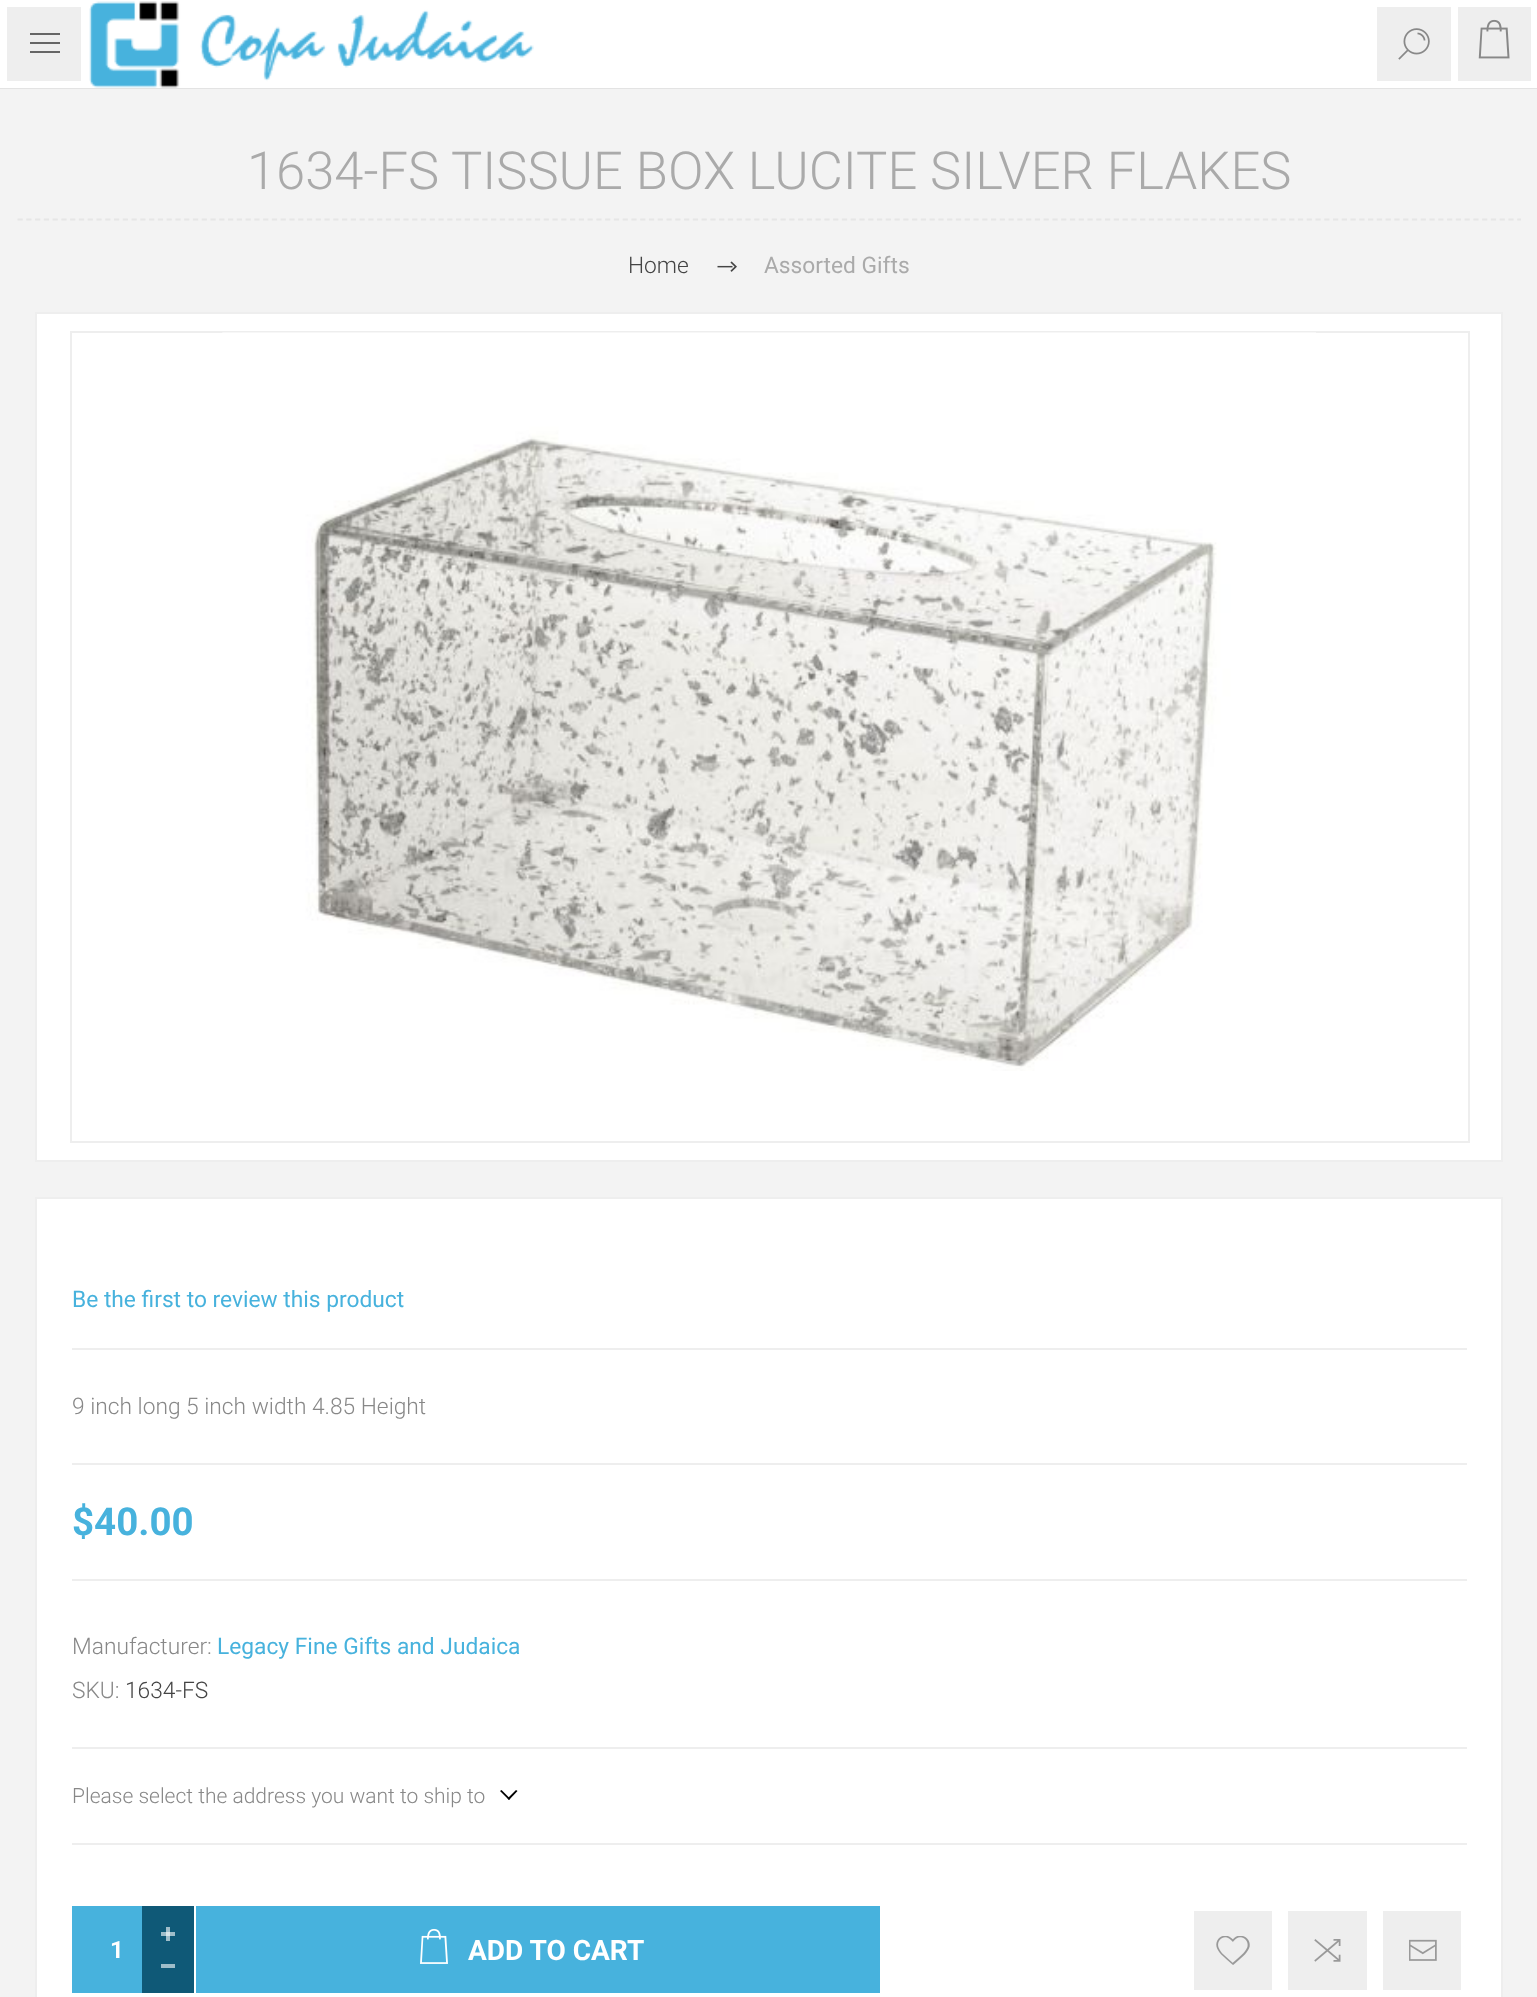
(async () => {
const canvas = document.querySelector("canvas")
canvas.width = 1537
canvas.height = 1997
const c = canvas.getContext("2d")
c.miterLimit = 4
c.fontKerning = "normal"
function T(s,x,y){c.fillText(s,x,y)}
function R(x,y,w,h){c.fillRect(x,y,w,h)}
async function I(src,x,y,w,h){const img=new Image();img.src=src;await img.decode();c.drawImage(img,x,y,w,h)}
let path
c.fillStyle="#f3f3f3"
R(0,0,1537,1997)
c.fillStyle="#e3e3e3"
R(0,88,1537,1)
c.fillStyle="#fff"
R(88,0,1363,88)
await I("1.png",89,1,445,87)
c.fillStyle="#eee"
R(1377,7,74,74)
await I("2.png",1398,28,32,32)
c.beginPath()
c.rect(3.5,3.5,81,81)
c.fill()
c.strokeStyle="#fff"
c.lineWidth=7
c.stroke()
c.fillStyle="#666"
R(30,33,30,2)
R(30,42,30,2)
R(30,51,30,2)
c.fillStyle="#eee"
c.beginPath()
c.rect(1454.5,3.5,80,81)
c.fill()
c.stroke()
await I("3.png",1478,19,32,40)
path = new Path2D("M17.5 219.5h1503.5")
c.strokeStyle="#e6e6e6"
c.lineWidth=1.8
c.setLineDash([5.25,3.52])
c.stroke(path)
c.font="300 52.5px Roboto"
c.fillStyle="#aaa"
T("1634-FS TISSUE BOX LUCITE SILVER FLAKES",247,189)
c.font="300 22.75px Roboto"
c.fillStyle="#444"
T("Home",628,273)
await I("4.png",717,261,20,11)
c.font="22.75px Roboto"
c.fillStyle="#aaa"
T("Assorted Gifts",764,273)
c.fillStyle="#fff"
c.beginPath()
c.rect(36,313,1466,848)
c.fill()
c.strokeStyle="#eee"
c.lineWidth=2
c.setLineDash([])
c.stroke()
c.strokeRect(71,332,1398,810)
await I("5.png",222,332,1094,739)
c.beginPath()
c.rect(36,1198,1466,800)
c.fill()
c.stroke()
c.fillStyle="#eee"
R(72,1348,1395,2)
c.fillStyle="#47b2dd"
T("Be the first to review this product",72,1307)
c.fillStyle="#eee"
R(72,1463,1395,2)
c.font="300 22.75px Roboto"
c.fillStyle="#888"
T("9 inch long 5 inch width 4.85 Height",72,1414)
c.fillStyle="#eee"
R(72,1579,1395,2)
c.font="bold 38.5px Roboto"
c.fillStyle="#47b2dd"
T("$40.00",72,1535)
c.fillStyle="#eee"
R(72,1747,1395,2)
c.font="300 22.75px Roboto"
c.fillStyle="#888"
T("Manufacturer:",72,1654)
c.font="22.75px Roboto"
c.fillStyle="#47b2dd"
T("Legacy Fine Gifts and Judaica",217,1654)
c.font="300 22.75px Roboto"
c.fillStyle="#888"
T("SKU:",72,1698)
c.fillStyle="#444"
T("1634-FS",125,1698)
c.fillStyle="#eee"
R(72,1843,1395,2)
c.font="300 21px Roboto"
c.fillStyle="#888"
T("Please select the address you want to ship to",72,1803)
c.fillStyle="#000"
path = new Path2D("M516 1790l1.5 1l-8.5 9l-1.5-1.5z")
c.fill(path)
path = new Path2D("M501.5 1790l8.5 8.5l-1 1.5l-9-9z")
c.fill(path)
c.fillStyle="#47b2dd"
R(72,1906,70,87)
c.font="bold 24px Roboto"
c.fillStyle="#fff"
T("1",110,1958)
c.fillStyle="#0f5977"
R(142,1906,52,87)
c.fillStyle="#9fbdc9"
R(166,1927,4,14)
R(161,1932,14,4)
c.fillStyle="#d9e5e9"
R(166,1932,4,4)
c.fillStyle="#9fbdc9"
R(161,1964,14,4)
c.fillStyle="#47b2dd"
R(196,1906,684,87)
await I("6.png",420,1928,28,36)
c.font="bold 28px Roboto"
c.fillStyle="#fff"
T("ADD TO CART",468,1960)
c.fillStyle="#eee"
R(1194,1911,78,79)
await I("7.png",1216,1936,34,29)
R(1288,1911,79,79)
await I("8.png",1314,1939,27,23)
R(1383,1911,78,79)
await I("9.png",1409,1939,28,22)
})()
